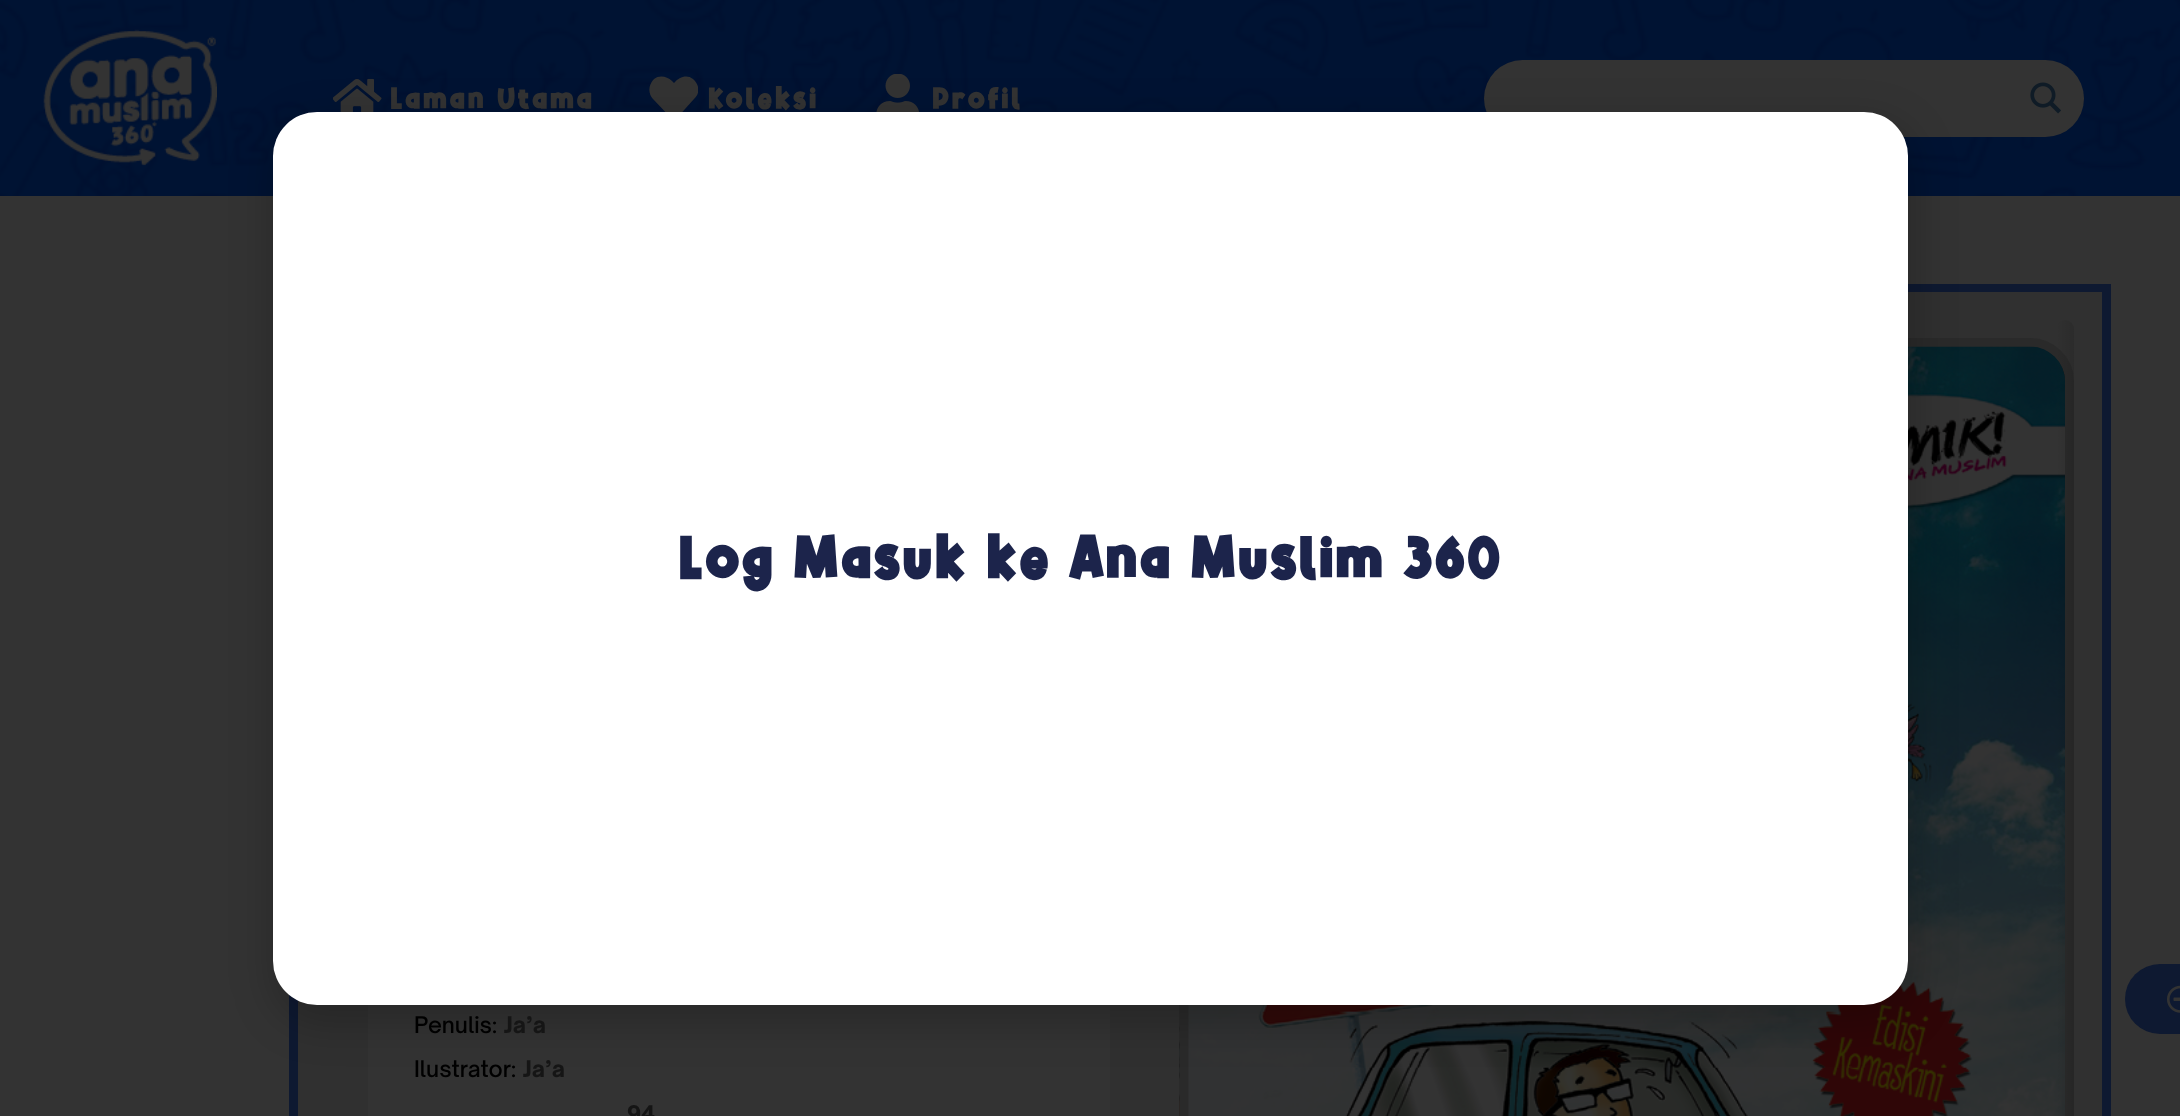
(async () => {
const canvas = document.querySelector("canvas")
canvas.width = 2180
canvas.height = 1116
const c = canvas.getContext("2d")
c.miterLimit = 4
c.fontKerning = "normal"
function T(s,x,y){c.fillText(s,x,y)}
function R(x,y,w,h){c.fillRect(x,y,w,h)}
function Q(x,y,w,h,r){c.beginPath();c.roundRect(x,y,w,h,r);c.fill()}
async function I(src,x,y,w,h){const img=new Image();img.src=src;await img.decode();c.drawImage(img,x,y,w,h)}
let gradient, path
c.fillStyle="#333"
R(0,0,2180,1116)
await I("1.png",0,0,2180,196)
await I("2.png",43,29,174,137)
await I("3.png",333,78,49,34)
c.letterSpacing="2.5px"
c.font="bold 28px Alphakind"
T("Laman Utama",390,109)
c.save()
c.beginPath()
c.rect(649,74,49,49)
c.clip()
path = new Path2D("M693 79c-6-5-14-2-19 4l-2-2c-5-5-13-6-18-2c-6 6-6 15-1 20l19 20c1 1 3 1 4 0l18-20c6-5 6-14-1-20z")
c.fill(path)
c.restore()
T("Koleksi",708,109)
await I("4.png",876,74,43,38)
T("Profil",932,109)
Q(1484,60,600,77,38.5)
await I("5.png",2030,82,31,32)
c.fillStyle="#303030"
R(1166,292,936,824)
c.fillStyle="#0e1931"
R(1908,284,194,8)
await I("8.png",1179,347,886,769)
await I("6.png",2036,347,37,35)
c.beginPath()
c.roundRect(1184.5,342.5,885,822,39.5)
c.strokeStyle="#2a2a2a"
c.lineWidth=9
c.stroke()
await I("7.png",1188,346,877,770)
c.fillStyle="#303030"
R(298,1000,868,116)
c.fillStyle="#0e1931"
R(289,995,9,121)
c.fillStyle="#333"
R(368,1005,742,111)
c.fillStyle="#00000033"
c.filter="blur(20px)"
c.beginPath()
c.roundRect(271,121,1645,903,49)
c.fill()
c.filter="none"
c.fillStyle="#fff"
Q(273,112,1635,893,44)
c.letterSpacing="1.75px"
c.font="bold 56px Alphakind"
c.fillStyle="#1c244b"
T("Log Masuk ke Ana Muslim 360",678,579)
c.fillStyle="#0e1931"
R(2102,284,9,832)
gradient = c.createLinearGradient(2074,961,2056,961)
gradient.addColorStop(0,"#0000001a")
gradient.addColorStop(1,"#00000000")
c.fillStyle = gradient
Q(2056,320,18,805,9)
c.fillStyle="#0e1931"
Q(2125,964,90,70,35)
await I("9.png",2167,985,13,28)
c.letterSpacing="0px"
c.font="500 22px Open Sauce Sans"
c.fillStyle="#000"
T("Penulis:",414,1033)
c.font="800 22px Open Sauce Sans"
c.fillStyle="#151515"
T("Ja’a",504,1033)
c.font="500 22px Open Sauce Sans"
c.fillStyle="#000"
T("Ilustrator:",414,1077)
c.font="800 22px Open Sauce Sans"
c.fillStyle="#151515"
T("Ja’a",523,1077)
T("94",627,1122)
})()
